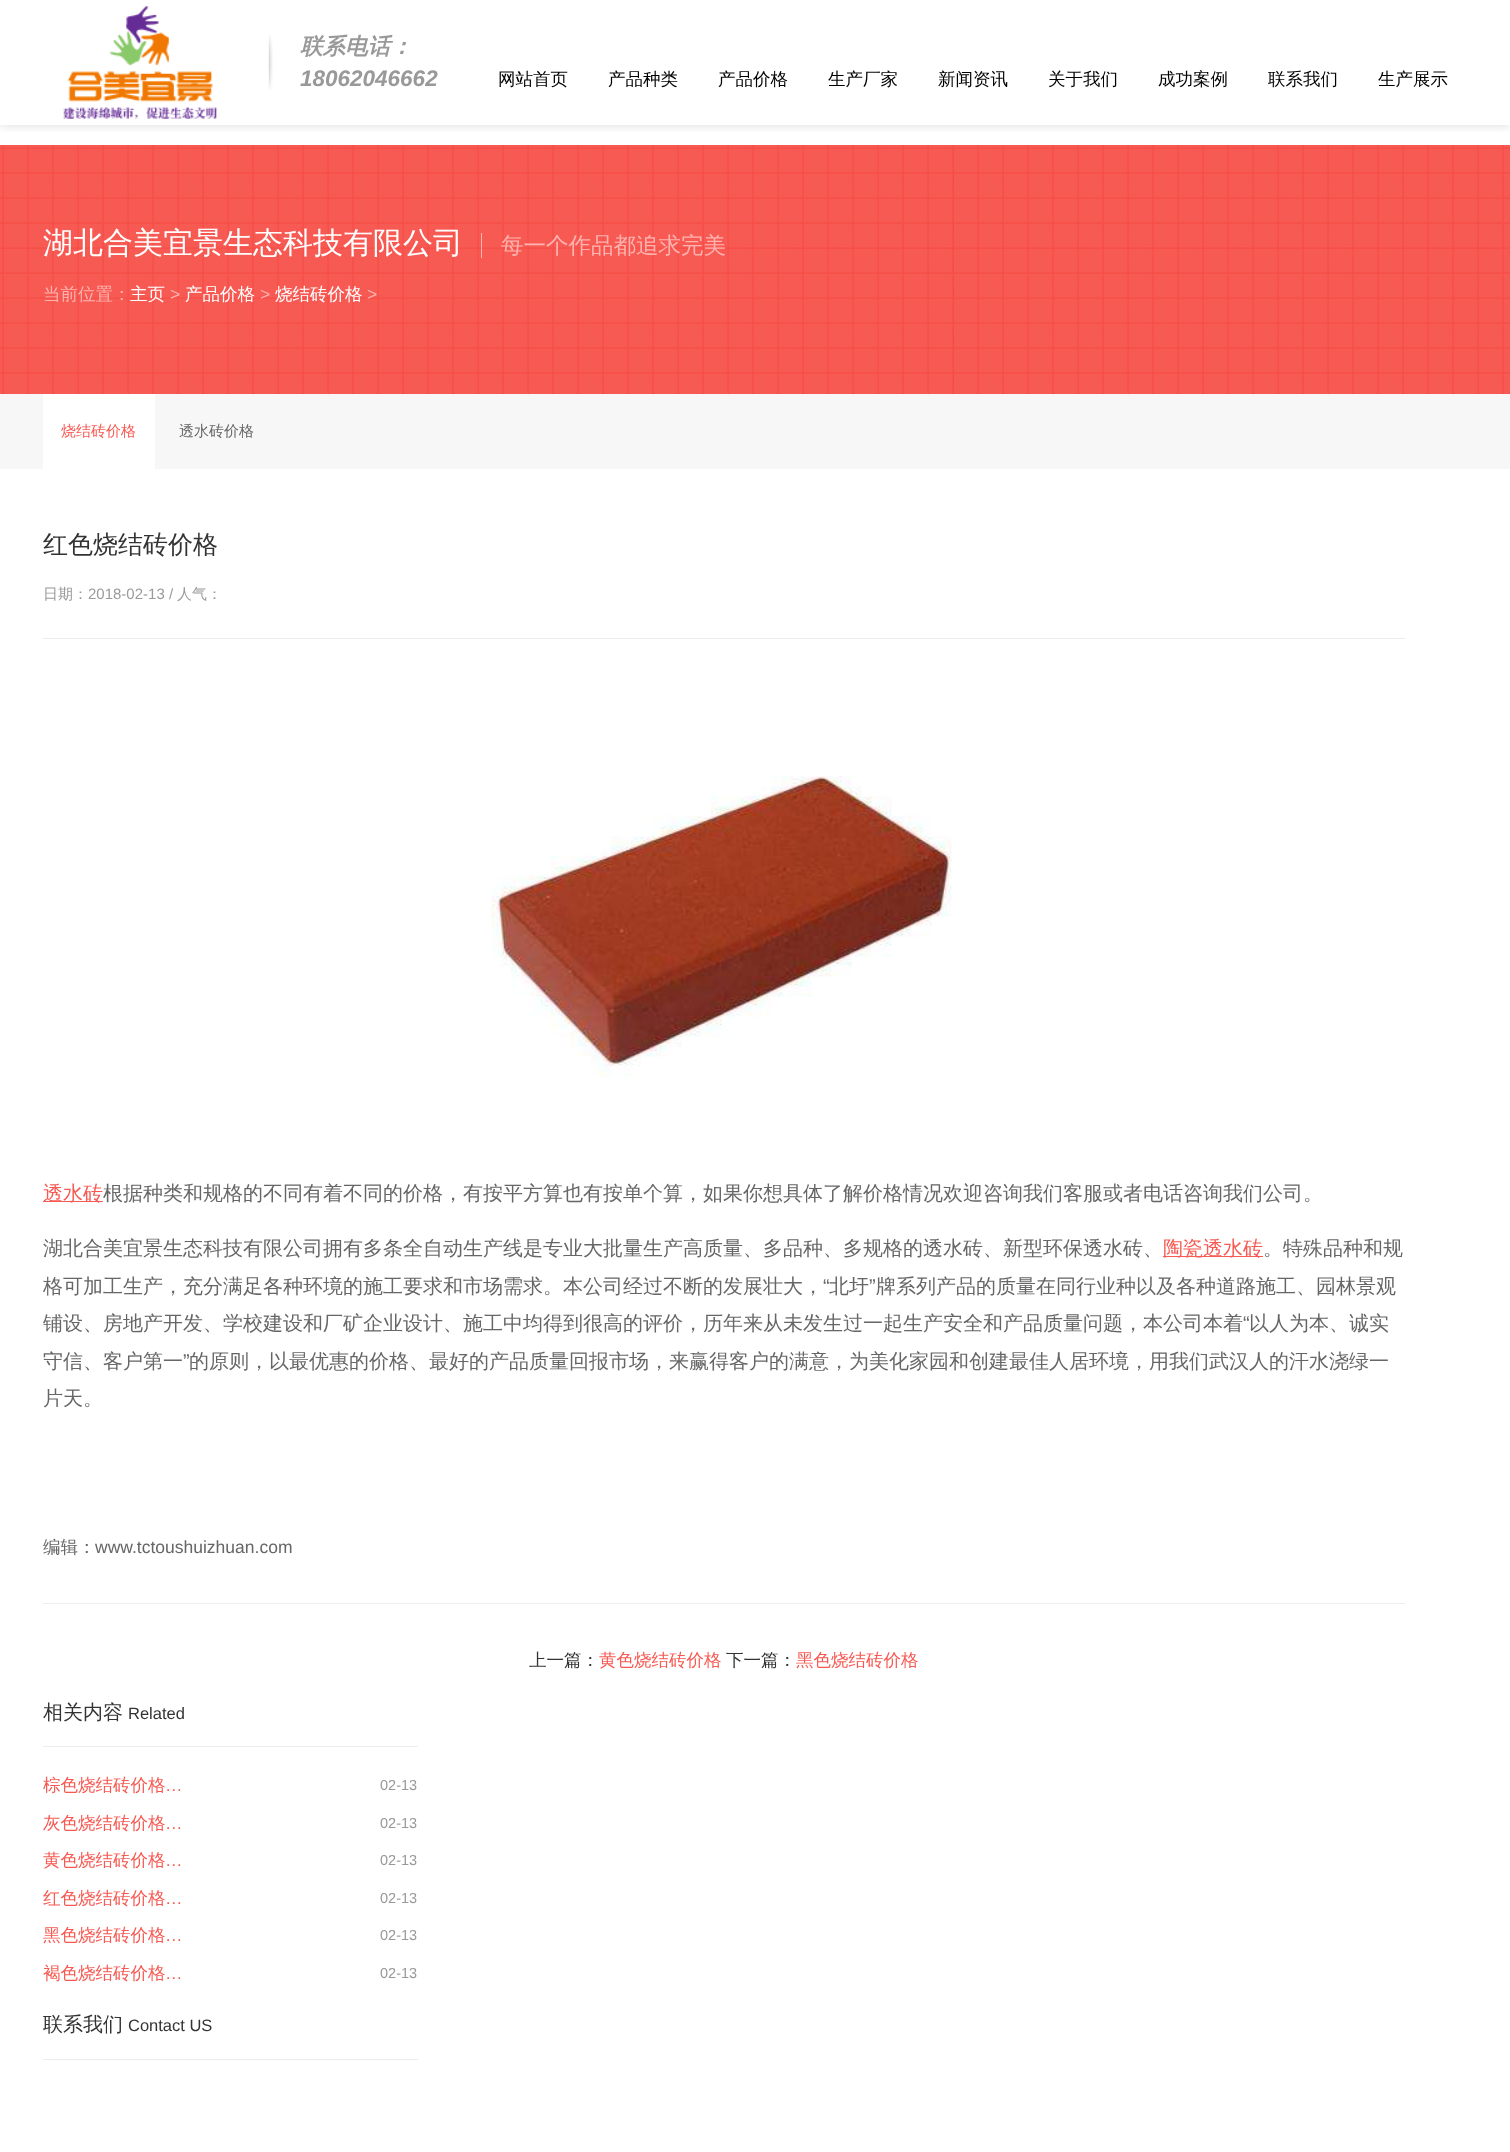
(async () => {
const canvas = document.querySelector("canvas")
canvas.width = 1510
canvas.height = 2152
const c = canvas.getContext("2d")
c.miterLimit = 4
c.fontKerning = "normal"
function T(s,x,y){c.fillText(s,x,y)}
function R(x,y,w,h){c.fillRect(x,y,w,h)}
async function I(src,x,y,w,h){const img=new Image();img.src=src;await img.decode();c.drawImage(img,x,y,w,h)}
c.fillStyle="#fff"
R(0,0,1510,2152)
c.save()
c.beginPath()
c.rect(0,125,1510,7)
c.clip()
c.fillStyle="#00000026"
c.filter="blur(6px)"
c.beginPath()
c.rect(0,0,1510,125)
c.fill()
c.filter="none"
c.restore()
await I("1.png",62,6,156,113)
await I("2.png",268,35,5,55)
c.font="italic bold 22.5px WenQuanYi Zen Hei"
c.fillStyle="#999"
T("联系电话：",300,54)
c.font="italic bold 22.5px Liberation Sans"
T("18062046662",300,86)
c.font="500 17.5px WenQuanYi Zen Hei"
c.fillStyle="#000"
T("网站首页",498,85)
T("产品种类",608,85)
T("产品价格",718,85)
T("生产厂家",828,85)
T("新闻资讯",938,85)
T("关于我们",1048,85)
T("成功案例",1158,85)
T("联系我们",1268,85)
T("生产展示",1378,85)
await I("3.png",0,145,1510,249)
c.font="500 30px WenQuanYi Zen Hei"
c.fillStyle="#fff"
T("湖北合美宜景生态科技有限公司",43,253)
c.font="500 22.5px WenQuanYi Zen Hei"
c.fillStyle="#ffb3b0"
T("每一个作品都追求完美",501,253)
R(481,233,1,25)
c.font="500 17.5px WenQuanYi Zen Hei"
T("当前位置：",43,300)
c.fillStyle="#fff"
T("主页",130,300)
c.font="17.5px Liberation Sans"
c.fillStyle="#ffb3b0"
T(">",170,300)
c.font="500 17.5px WenQuanYi Zen Hei"
c.fillStyle="#fff"
T("产品价格",185,300)
c.font="17.5px Liberation Sans"
c.fillStyle="#ffb3b0"
T(">",260,300)
c.font="500 17.5px WenQuanYi Zen Hei"
c.fillStyle="#fff"
T("烧结砖价格",275,300)
c.font="17.5px Liberation Sans"
c.fillStyle="#ffb3b0"
T(">",367,300)
c.fillStyle="#f7f7f7"
R(0,394,1510,75)
c.fillStyle="#fff"
R(43,394,112,75)
c.font="500 15px WenQuanYi Zen Hei"
c.fillStyle="#f75a53"
T("烧结砖价格",61,436)
c.fillStyle="#666"
T("透水砖价格",179,436)
c.font="500 25px WenQuanYi Zen Hei"
c.fillStyle="#333"
T("红色烧结砖价格",43,553)
c.fillStyle="#ededed"
R(43,638,1362,1)
c.font="500 15px WenQuanYi Zen Hei"
c.fillStyle="#999"
T("日期：",43,599)
c.font="15px Liberation Sans"
T("2018-02-13 /",88,599)
c.font="500 15px WenQuanYi Zen Hei"
T("人气：",177,599)
await I("4.png",491,776,461,301)
c.fillStyle="#f75a53"
R(43,1201,60,1)
c.font="500 20px WenQuanYi Zen Hei"
T("透水砖",43,1200)
c.fillStyle="#666"
T("根据种类和规格的不同有着不同的价格，有按平方算也有按单个算，如果你想具体了解价格情况欢迎咨询我们客服或者电话咨询我们公司。",103,1200)
T("湖北合美宜景生态科技有限公司拥有多条全自动生产线是专业大批量生产高质量、多品种、多规格的透水砖、新型环保透水砖、",43,1255)
c.fillStyle="#f75a53"
R(1163,1256,100,1)
T("陶瓷透水砖",1163,1255)
c.fillStyle="#666"
T("。特殊品种和规",1263,1255)
T("格可加工生产，充分满足各种环境的施工要求和市场需求。本公司经过不断的发展壮大，",43,1293)
c.font="20px Liberation Sans"
T("“",823,1293)
c.font="500 20px WenQuanYi Zen Hei"
T("北圩",829,1293)
c.font="20px Liberation Sans"
T("”",869,1293)
c.font="500 20px WenQuanYi Zen Hei"
T("牌系列产品的质量在同行业种以及各种道路施工、园林景观",876,1293)
T("铺设、房地产开发、学校建设和厂矿企业设计、施工中均得到很高的评价，历年来从未发生过一起生产安全和产品质量问题，本公司本着",43,1330)
c.font="20px Liberation Sans"
T("“",1243,1330)
c.font="500 20px WenQuanYi Zen Hei"
T("以人为本、诚实",1249,1330)
T("守信、客户第一",43,1368)
c.font="20px Liberation Sans"
T("”",183,1368)
c.font="500 20px WenQuanYi Zen Hei"
T("的原则，以最优惠的价格、最好的产品质量回报市场，来赢得客户的满意，为美化家园和创建最佳人居环境，用我们武汉人的汗水浇绿一",189,1368)
T("片天。",43,1405)
c.font="500 17.5px WenQuanYi Zen Hei"
T("编辑：",43,1553)
c.font="17.5px Liberation Sans"
T("www.tctoushuizhuan.com",95,1553)
c.fillStyle="#eee"
R(43,1603,1362,1)
c.font="500 17.5px WenQuanYi Zen Hei"
c.fillStyle="#333"
T("上一篇：",529,1666)
c.fillStyle="#f75a53"
T("黄色烧结砖价格",599,1666)
c.fillStyle="#333"
T("下一篇：",726,1666)
c.fillStyle="#f75a53"
T("黑色烧结砖价格",796,1666)
c.fillStyle="#ededed"
R(43,1746,375,1)
c.font="500 20px WenQuanYi Zen Hei"
c.fillStyle="#333"
T("相关内容",43,1719)
c.font="16.5px Liberation Sans"
T("Related",128,1719)
c.font="500 17.5px WenQuanYi Zen Hei"
c.fillStyle="#f75a53"
T("棕色烧结砖价格",43,1791)
c.font="17.5px Liberation Sans"
T("…",165,1791)
c.font="14.5px Liberation Sans"
c.fillStyle="#999"
T("02-13",380,1790)
c.font="500 17.5px WenQuanYi Zen Hei"
c.fillStyle="#f75a53"
T("灰色烧结砖价格",43,1829)
c.font="17.5px Liberation Sans"
T("…",165,1829)
c.font="14.5px Liberation Sans"
c.fillStyle="#999"
T("02-13",380,1828)
c.font="500 17.5px WenQuanYi Zen Hei"
c.fillStyle="#f75a53"
T("黄色烧结砖价格",43,1866)
c.font="17.5px Liberation Sans"
T("…",165,1866)
c.font="14.5px Liberation Sans"
c.fillStyle="#999"
T("02-13",380,1865)
c.font="500 17.5px WenQuanYi Zen Hei"
c.fillStyle="#f75a53"
T("红色烧结砖价格",43,1904)
c.font="17.5px Liberation Sans"
T("…",165,1904)
c.font="14.5px Liberation Sans"
c.fillStyle="#999"
T("02-13",380,1903)
c.font="500 17.5px WenQuanYi Zen Hei"
c.fillStyle="#f75a53"
T("黑色烧结砖价格",43,1941)
c.font="17.5px Liberation Sans"
T("…",165,1941)
c.font="14.5px Liberation Sans"
c.fillStyle="#999"
T("02-13",380,1940)
c.font="500 17.5px WenQuanYi Zen Hei"
c.fillStyle="#f75a53"
T("褐色烧结砖价格",43,1979)
c.font="17.5px Liberation Sans"
T("…",165,1979)
c.font="14.5px Liberation Sans"
c.fillStyle="#999"
T("02-13",380,1978)
c.fillStyle="#ededed"
R(43,2059,375,1)
c.font="500 20px WenQuanYi Zen Hei"
c.fillStyle="#333"
T("联系我们",43,2031)
c.font="16.5px Liberation Sans"
T("Contact US",128,2031)
})()
